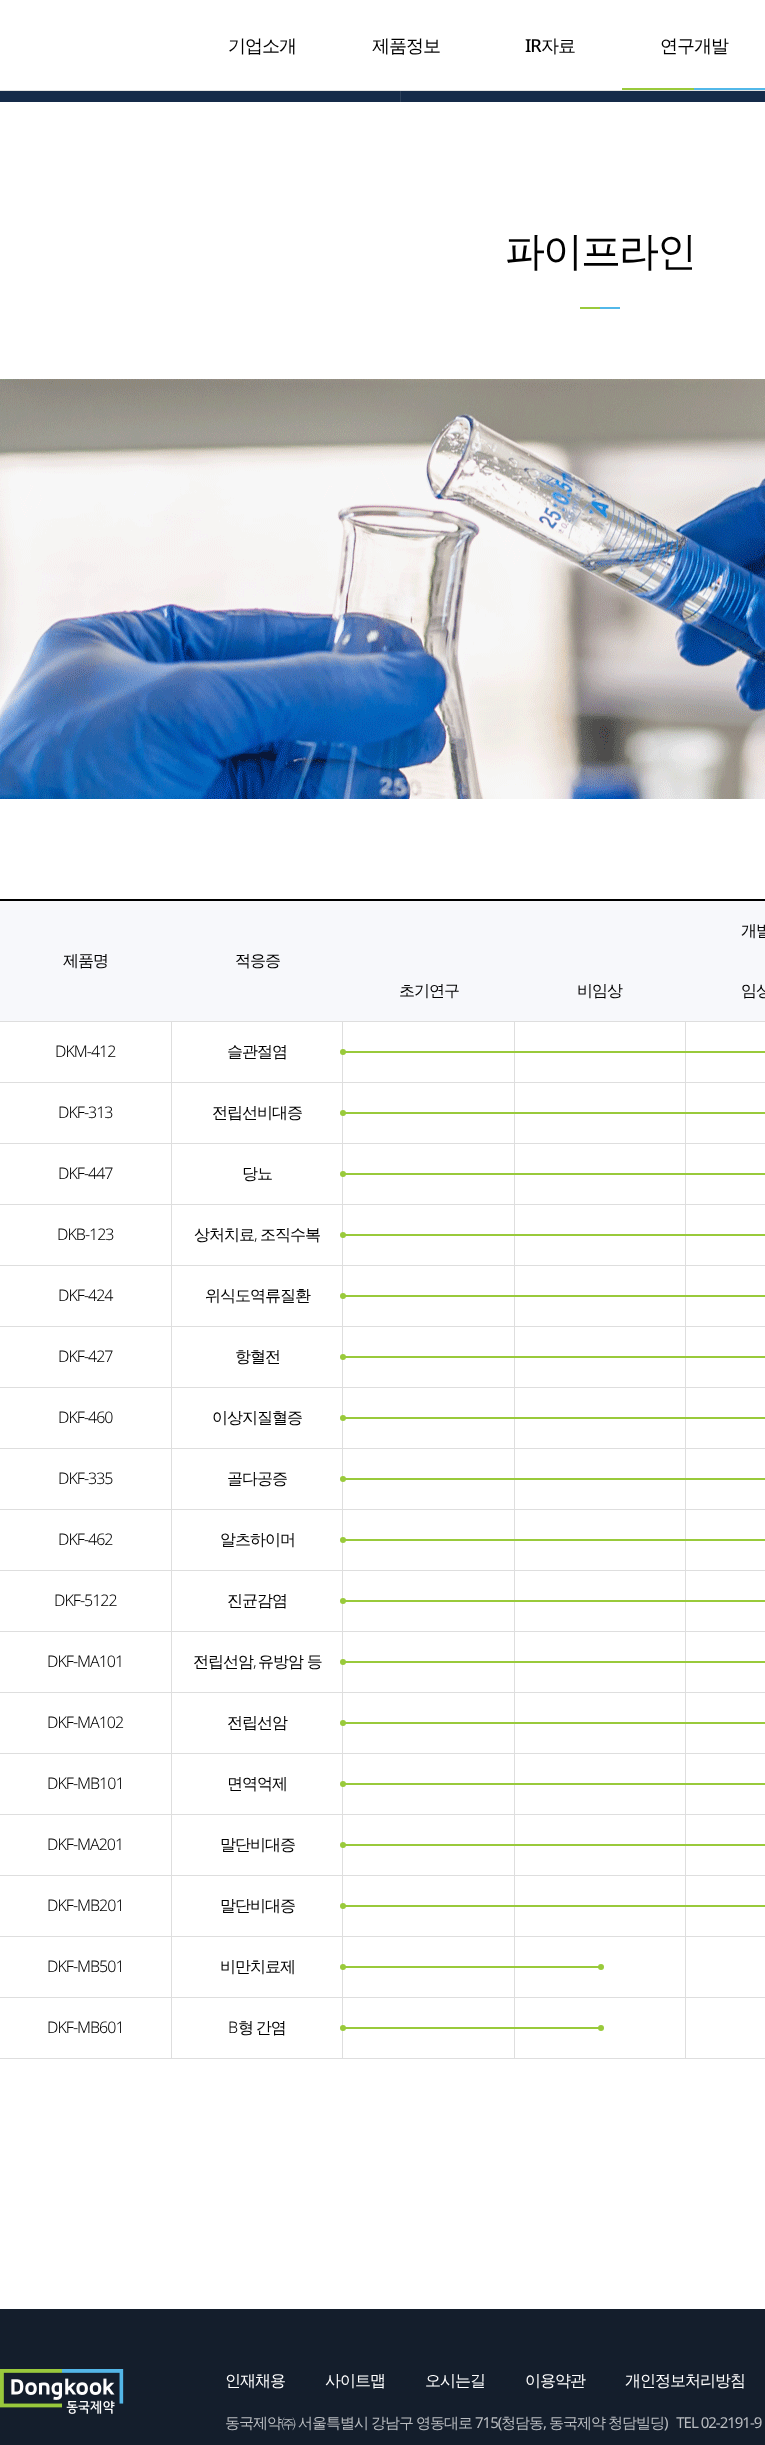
(async () => {
const canvas = document.querySelector("canvas")
canvas.width = 765
canvas.height = 2445
const c = canvas.getContext("2d")
c.miterLimit = 4
c.fontKerning = "normal"
function T(s,x,y){c.fillText(s,x,y)}
function R(x,y,w,h){c.fillRect(x,y,w,h)}
async function I(src,x,y,w,h){const img=new Image();img.src=src;await img.decode();c.drawImage(img,x,y,w,h)}
c.fillStyle="#fff"
R(0,0,765,2445)
c.letterSpacing="-1px"
c.font="500 18px WenQuanYi Zen Hei"
c.fillStyle="#000"
T("기업소개",228,52)
T("제품정보",372,52)
c.font="500 18px Noto Sans"
T("IR",525,52)
c.font="500 18px WenQuanYi Zen Hei"
T("자료",541,52)
T("연구개발",660,52)
c.fillStyle="#99ca3b"
R(622,88,72,2)
c.fillStyle="#52b8e9"
R(694,88,71,2)
c.fillStyle="#e2e2e2"
R(0,90,765,1)
c.fillStyle="#152b49"
R(0,91,400,11)
R(401,91,364,11)
c.fillStyle="#2c405b"
R(400,91,1,11)
c.letterSpacing="-2px"
c.font="500 40px WenQuanYi Zen Hei"
c.fillStyle="#000"
T("파이프라인",505,265)
c.fillStyle="#99ca3b"
R(580,307,20,2)
c.fillStyle="#52b8e9"
R(600,307,20,2)
await I("1.png",0,379,765,420)
c.fillStyle="#000"
R(0,899,765,2)
c.fillStyle="#f7f8fb"
R(343,901,422,60)
c.letterSpacing="-1px"
c.font="500 16px WenQuanYi Zen Hei"
c.fillStyle="#000"
T("개발",741,936)
c.fillStyle="#f7f8fb"
R(0,901,343,120)
c.fillStyle="#000"
T("제품명",63,966)
T("적응증",235,966)
c.fillStyle="#f7f8fb"
R(343,961,422,60)
c.fillStyle="#000"
T("초기연구",399,996)
T("비임상",577,996)
T("임상",741,996)
c.fillStyle="#dedede"
R(685,1021,80,1)
R(685,1082,80,1)
R(685,1143,80,1)
R(685,1204,80,1)
R(685,1265,80,1)
R(685,1326,80,1)
R(685,1387,80,1)
R(685,1448,80,1)
R(685,1509,80,1)
R(685,1570,80,1)
R(685,1631,80,1)
R(685,1692,80,1)
R(685,1753,80,1)
R(685,1814,80,1)
R(685,1875,80,1)
R(685,1936,80,1)
R(685,1997,80,1)
R(685,2058,80,1)
R(685,1997,1,62)
R(514,1997,172,1)
R(685,1936,1,62)
R(514,1936,172,1)
R(685,1875,1,62)
R(514,1875,172,1)
R(685,1814,1,62)
R(514,1814,172,1)
R(685,1753,1,62)
R(514,1753,172,1)
R(685,1692,1,62)
R(514,1692,172,1)
R(685,1631,1,62)
R(514,1631,172,1)
R(685,1570,1,62)
R(514,1570,172,1)
R(685,1509,1,62)
R(514,1509,172,1)
R(685,1448,1,62)
R(514,1448,172,1)
R(685,1387,1,62)
R(514,1387,172,1)
R(685,1326,1,62)
R(514,1326,172,1)
R(685,1265,1,62)
R(514,1265,172,1)
R(685,1204,1,62)
R(514,1204,172,1)
R(685,1143,1,62)
R(514,1143,172,1)
R(685,1082,1,62)
R(514,1082,172,1)
R(685,1021,1,62)
R(514,1021,172,1)
R(514,2058,172,1)
R(514,1997,1,62)
R(342,1997,173,1)
R(514,1936,1,62)
R(342,1936,173,1)
R(514,1875,1,62)
R(342,1875,173,1)
R(514,1814,1,62)
R(342,1814,173,1)
R(514,1753,1,62)
R(342,1753,173,1)
R(514,1692,1,62)
R(342,1692,173,1)
R(514,1631,1,62)
R(342,1631,173,1)
R(514,1570,1,62)
R(342,1570,173,1)
R(514,1509,1,62)
R(342,1509,173,1)
R(514,1448,1,62)
R(342,1448,173,1)
R(514,1387,1,62)
R(342,1387,173,1)
R(514,1326,1,62)
R(342,1326,173,1)
R(514,1265,1,62)
R(342,1265,173,1)
R(514,1204,1,62)
R(342,1204,173,1)
R(514,1143,1,62)
R(342,1143,173,1)
R(514,1082,1,62)
R(342,1082,173,1)
R(514,1021,1,62)
R(342,1021,173,1)
R(342,2058,173,1)
R(342,1997,1,62)
R(171,1997,172,1)
R(342,1936,1,62)
R(171,1936,172,1)
R(342,1875,1,62)
R(171,1875,172,1)
R(342,1814,1,62)
R(171,1814,172,1)
R(342,1753,1,62)
R(171,1753,172,1)
R(342,1692,1,62)
R(171,1692,172,1)
R(342,1631,1,62)
R(171,1631,172,1)
R(342,1570,1,62)
R(171,1570,172,1)
R(342,1509,1,62)
R(171,1509,172,1)
R(342,1448,1,62)
R(171,1448,172,1)
R(342,1387,1,62)
R(171,1387,172,1)
R(342,1326,1,62)
R(171,1326,172,1)
R(342,1265,1,62)
R(171,1265,172,1)
R(342,1204,1,62)
R(171,1204,172,1)
R(342,1143,1,62)
R(171,1143,172,1)
R(342,1082,1,62)
R(171,1082,172,1)
R(342,1021,1,62)
c.fillStyle="#99ca3b"
R(343,1051,422,2)
c.beginPath()
c.arc(343,1052,3,0,7)
c.fill()
c.fillStyle="#dedede"
R(171,1021,172,1)
R(171,2058,172,1)
R(171,1997,1,62)
R(0,1997,172,1)
R(171,1936,1,62)
R(0,1936,172,1)
R(171,1875,1,62)
R(0,1875,172,1)
R(171,1814,1,62)
R(0,1814,172,1)
R(171,1753,1,62)
R(0,1753,172,1)
R(171,1692,1,62)
R(0,1692,172,1)
R(171,1631,1,62)
R(0,1631,172,1)
R(171,1570,1,62)
R(0,1570,172,1)
R(171,1509,1,62)
R(0,1509,172,1)
R(171,1448,1,62)
R(0,1448,172,1)
R(171,1387,1,62)
R(0,1387,172,1)
R(171,1326,1,62)
R(0,1326,172,1)
R(171,1265,1,62)
R(0,1265,172,1)
R(171,1204,1,62)
R(0,1204,172,1)
R(171,1143,1,62)
R(0,1143,172,1)
R(171,1082,1,62)
R(0,1082,172,1)
R(171,1021,1,62)
R(0,1021,172,1)
c.font="300 16px Noto Sans"
c.fillStyle="#000"
T("DKM-412",55,1057)
c.font="500 16px WenQuanYi Zen Hei"
T("슬관절염",227,1057)
c.fillStyle="#99ca3b"
R(343,1112,422,2)
c.beginPath()
c.arc(343,1113,3,0,7)
c.fill()
c.font="300 16px Noto Sans"
c.fillStyle="#000"
T("DKF-313",58,1118)
c.font="500 16px WenQuanYi Zen Hei"
T("전립선비대증",212,1118)
c.fillStyle="#99ca3b"
R(343,1173,422,2)
c.beginPath()
c.arc(343,1174,3,0,7)
c.fill()
c.font="300 16px Noto Sans"
c.fillStyle="#000"
T("DKF-447",58,1179)
c.font="500 16px WenQuanYi Zen Hei"
T("당뇨",242,1179)
c.fillStyle="#99ca3b"
R(343,1234,422,2)
c.beginPath()
c.arc(343,1235,3,0,7)
c.fill()
c.font="300 16px Noto Sans"
c.fillStyle="#000"
T("DKB-123",57,1240)
c.font="500 16px WenQuanYi Zen Hei"
T("상처치료",194,1240)
c.font="300 16px Noto Sans"
T(",",254,1240)
c.font="500 16px WenQuanYi Zen Hei"
T("조직수복",260,1240)
c.fillStyle="#99ca3b"
R(343,1295,422,2)
c.beginPath()
c.arc(343,1296,3,0,7)
c.fill()
c.font="300 16px Noto Sans"
c.fillStyle="#000"
T("DKF-424",58,1301)
c.font="500 16px WenQuanYi Zen Hei"
T("위식도역류질환",205,1301)
c.fillStyle="#99ca3b"
R(343,1356,422,2)
c.beginPath()
c.arc(343,1357,3,0,7)
c.fill()
c.font="300 16px Noto Sans"
c.fillStyle="#000"
T("DKF-427",58,1362)
c.font="500 16px WenQuanYi Zen Hei"
T("항혈전",235,1362)
c.fillStyle="#99ca3b"
R(343,1417,422,2)
c.beginPath()
c.arc(343,1418,3,0,7)
c.fill()
c.font="300 16px Noto Sans"
c.fillStyle="#000"
T("DKF-460",58,1423)
c.font="500 16px WenQuanYi Zen Hei"
T("이상지질혈증",212,1423)
c.fillStyle="#99ca3b"
R(343,1478,422,2)
c.beginPath()
c.arc(343,1479,3,0,7)
c.fill()
c.font="300 16px Noto Sans"
c.fillStyle="#000"
T("DKF-335",58,1484)
c.font="500 16px WenQuanYi Zen Hei"
T("골다공증",227,1484)
c.fillStyle="#99ca3b"
R(343,1539,422,2)
c.beginPath()
c.arc(343,1540,3,0,7)
c.fill()
c.font="300 16px Noto Sans"
c.fillStyle="#000"
T("DKF-462",58,1545)
c.font="500 16px WenQuanYi Zen Hei"
T("알츠하이머",220,1545)
c.fillStyle="#99ca3b"
R(343,1600,422,2)
c.beginPath()
c.arc(343,1601,3,0,7)
c.fill()
c.font="300 16px Noto Sans"
c.fillStyle="#000"
T("DKF-5122",54,1606)
c.font="500 16px WenQuanYi Zen Hei"
T("진균감염",227,1606)
c.fillStyle="#99ca3b"
R(343,1661,422,2)
c.beginPath()
c.arc(343,1662,3,0,7)
c.fill()
c.font="300 16px Noto Sans"
c.fillStyle="#000"
T("DKF-MA101",47,1667)
c.font="500 16px WenQuanYi Zen Hei"
T("전립선암",193,1667)
c.font="300 16px Noto Sans"
T(",",253,1667)
c.font="500 16px WenQuanYi Zen Hei"
T("유방암 등",258,1667)
c.fillStyle="#99ca3b"
R(343,1722,422,2)
c.beginPath()
c.arc(343,1723,3,0,7)
c.fill()
c.font="300 16px Noto Sans"
c.fillStyle="#000"
T("DKF-MA102",47,1728)
c.font="500 16px WenQuanYi Zen Hei"
T("전립선암",227,1728)
c.fillStyle="#99ca3b"
R(343,1783,422,2)
c.beginPath()
c.arc(343,1784,3,0,7)
c.fill()
c.font="300 16px Noto Sans"
c.fillStyle="#000"
T("DKF-MB101",47,1789)
c.font="500 16px WenQuanYi Zen Hei"
T("면역억제",227,1789)
c.fillStyle="#99ca3b"
R(343,1844,422,2)
c.beginPath()
c.arc(343,1845,3,0,7)
c.fill()
c.font="300 16px Noto Sans"
c.fillStyle="#000"
T("DKF-MA201",47,1850)
c.font="500 16px WenQuanYi Zen Hei"
T("말단비대증",220,1850)
c.fillStyle="#99ca3b"
R(343,1905,422,2)
c.beginPath()
c.arc(343,1906,3,0,7)
c.fill()
c.font="300 16px Noto Sans"
c.fillStyle="#000"
T("DKF-MB201",47,1911)
c.font="500 16px WenQuanYi Zen Hei"
T("말단비대증",220,1911)
c.fillStyle="#99ca3b"
R(343,1966,256,2)
c.beginPath()
c.arc(343,1967,3,0,7)
c.fill()
c.beginPath()
c.arc(601,1967,3,0,7)
c.fill()
c.font="300 16px Noto Sans"
c.fillStyle="#000"
T("DKF-MB501",47,1972)
c.font="500 16px WenQuanYi Zen Hei"
T("비만치료제",220,1972)
c.fillStyle="#99ca3b"
R(343,2027,256,2)
c.beginPath()
c.arc(343,2028,3,0,7)
c.fill()
c.beginPath()
c.arc(601,2028,3,0,7)
c.fill()
c.fillStyle="#dedede"
R(0,2058,172,1)
c.font="300 16px Noto Sans"
c.fillStyle="#000"
T("DKF-MB601",47,2033)
T("B",228,2033)
c.wordSpacing="-1px"
c.font="500 16px WenQuanYi Zen Hei"
T("형 간염",238,2033)
c.fillStyle="#141e2c"
R(0,2309,765,136)
await I("2.png",0,2369,124,45)
c.wordSpacing="0px"
c.fillStyle="#fff"
T("인재채용",225,2386)
T("사이트맵",325,2386)
T("오시는길",425,2386)
T("이용약관",525,2386)
T("개인정보처리방침",625,2386)
c.font="500 15px WenQuanYi Zen Hei"
c.fillStyle="#b9bcc0"
T("동국제약㈜",225,2428)
T("서울특별시",298,2428)
T("강남구",371,2428)
T("영동대로",416,2428)
c.font="15px Noto Sans"
T("715(",475,2428)
c.font="500 15px WenQuanYi Zen Hei"
T("청담동",501,2428)
c.font="15px Noto Sans"
T(",",543,2428)
c.font="500 15px WenQuanYi Zen Hei"
T("동국제약",549,2428)
T("청담빌딩",608,2428)
c.font="15px Noto Sans"
T(")   TEL 02-2191-9",664,2428)
})()
